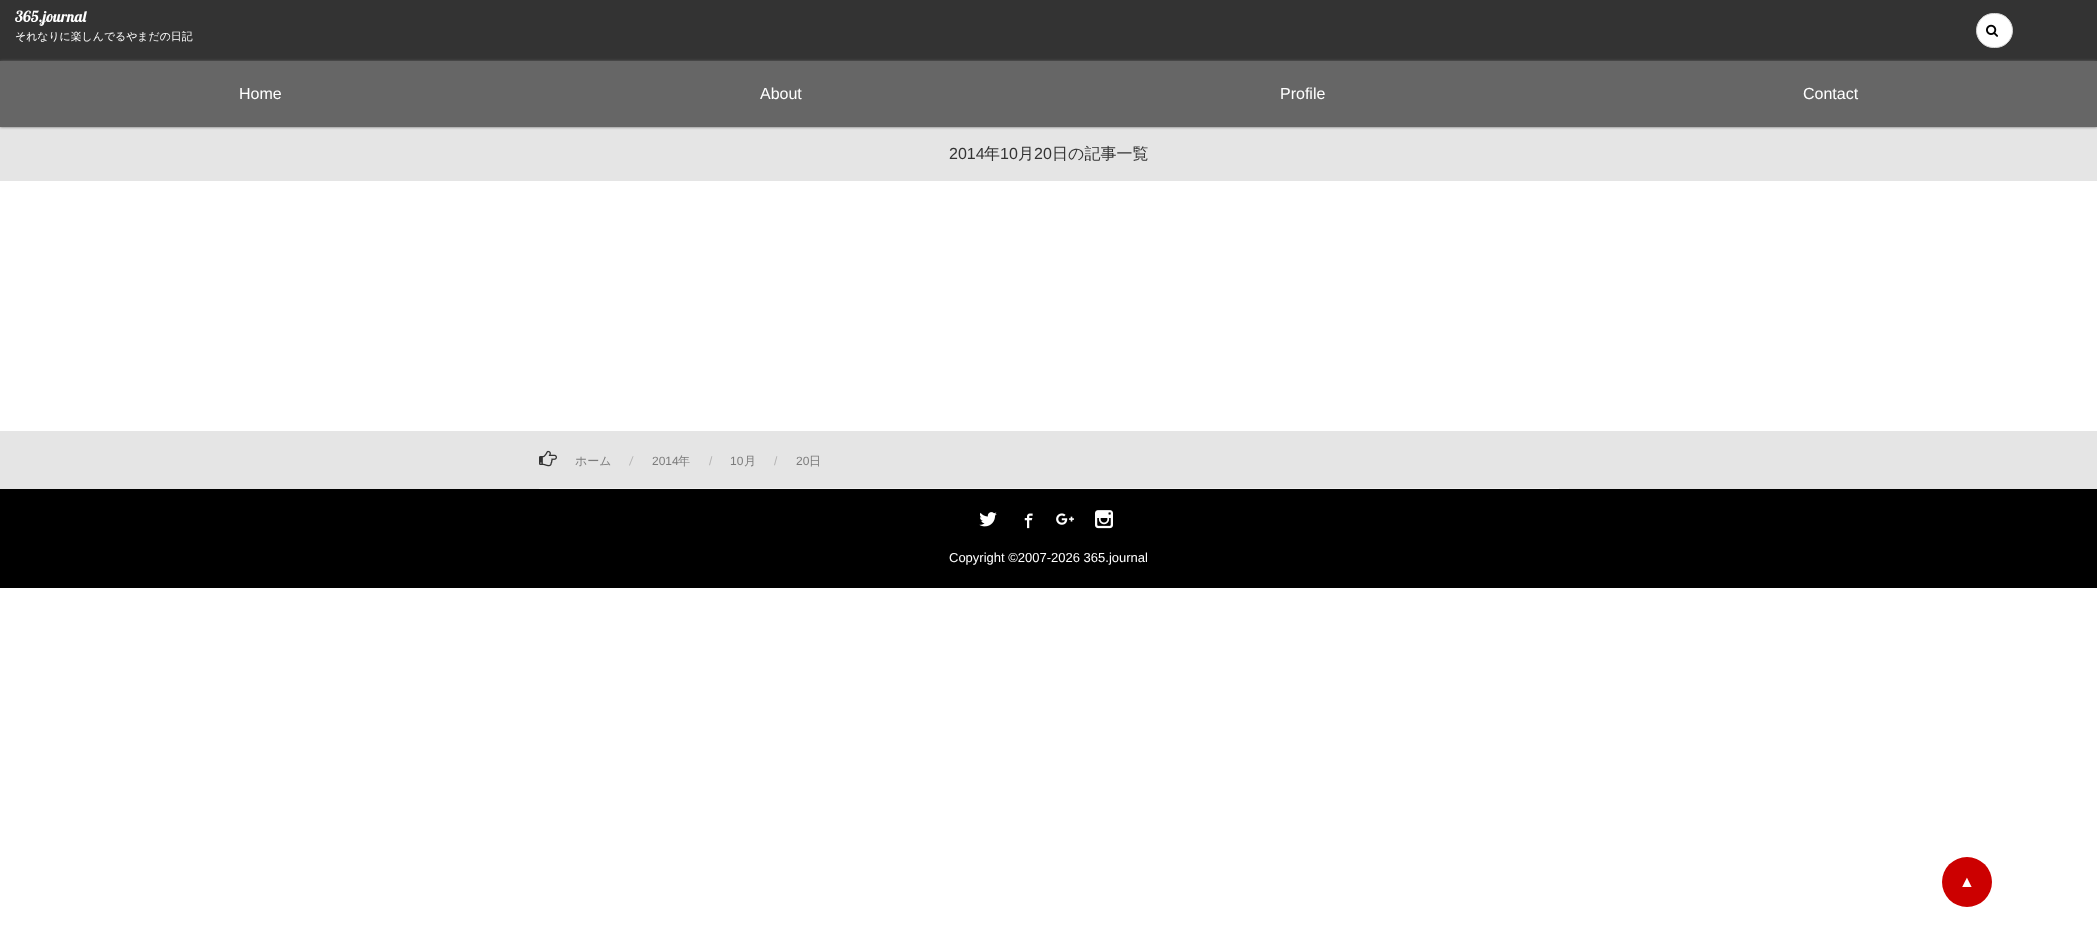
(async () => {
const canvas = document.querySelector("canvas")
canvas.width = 2097
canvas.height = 947
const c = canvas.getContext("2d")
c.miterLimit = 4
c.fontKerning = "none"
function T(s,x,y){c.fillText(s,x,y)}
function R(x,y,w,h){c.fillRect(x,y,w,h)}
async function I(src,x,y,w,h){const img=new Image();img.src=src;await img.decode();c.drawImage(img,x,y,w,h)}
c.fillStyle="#fff"
R(0,0,2097,947)
c.fillStyle="#333"
R(0,0,2097,61)
c.font="15.5px Lobster"
c.fillStyle="#fff"
T("365.journal",15,22)
c.font="500 10.9px WenQuanYi Zen Hei"
T("それなりに楽しんでるやまだの日記",15,40)
c.beginPath()
c.roundRect(1976.5,13.5,36,34,17)
c.fill()
c.strokeStyle="#d6d6d6"
c.stroke()
await I("1.png",1986,24,12,13)
c.fillStyle="#e5e5e5"
R(0,127,2097,54)
c.fillStyle="#666"
c.filter="blur(1.5px)"
c.beginPath()
c.rect(0,61,2097,66)
c.fill()
c.filter="none"
R(0,61,2097,66)
c.font="16px Liberation Sans"
c.fillStyle="#fff"
T("Home",239,99)
T("About",760,99)
T("Profile",1280,99)
T("Contact",1803,99)
c.fillStyle="#333"
T("2014",949,159)
c.font="500 16px WenQuanYi Zen Hei"
T("年",984,159)
c.font="16px Liberation Sans"
T("10",1000,159)
c.font="500 16px WenQuanYi Zen Hei"
T("月",1018,159)
c.font="16px Liberation Sans"
T("20",1034,159)
c.font="500 16px WenQuanYi Zen Hei"
T("日の記事一覧",1052,159)
c.fillStyle="#e5e5e5"
R(0,431,2097,58)
c.fillStyle="#f0f0f0"
R(539,488,1020,1)
await I("2.png",539,450,18,17)
c.font="500 12px WenQuanYi Zen Hei"
c.fillStyle="#7b7b7b"
T("ホーム",575,465)
c.font="12px Lato"
c.fillStyle="#b5b4b4"
T("/",629,465)
c.font="12px Liberation Sans"
c.fillStyle="#7b7b7b"
T("2014",652,465)
c.font="500 12px WenQuanYi Zen Hei"
T("年",678,465)
c.font="12px Liberation Sans"
c.fillStyle="#b5b4b4"
T("/",709,465)
c.fillStyle="#7b7b7b"
T("10",730,465)
c.font="500 12px WenQuanYi Zen Hei"
T("月",744,465)
c.font="12px Liberation Sans"
c.fillStyle="#b5b4b4"
T("/",774,465)
c.fillStyle="#7b7b7b"
T("20",796,465)
c.font="500 12px WenQuanYi Zen Hei"
T("日",809,465)
c.fillStyle="#000"
R(0,489,2097,99)
await I("3.png",979,512,18,15)
await I("4.png",1024,513,9,16)
await I("5.png",1056,513,18,12)
await I("6.png",1095,510,18,19)
c.font="13px Liberation Sans"
c.fillStyle="#fff"
T("Copyright ©2007-2026 365.journal",949,562)
c.fillStyle="#c00"
c.beginPath()
c.arc(1967,882,25,0,7)
c.fill()
c.font="16px Liberation Sans"
c.fillStyle="#fff"
T("▲",1959,887)
})()
